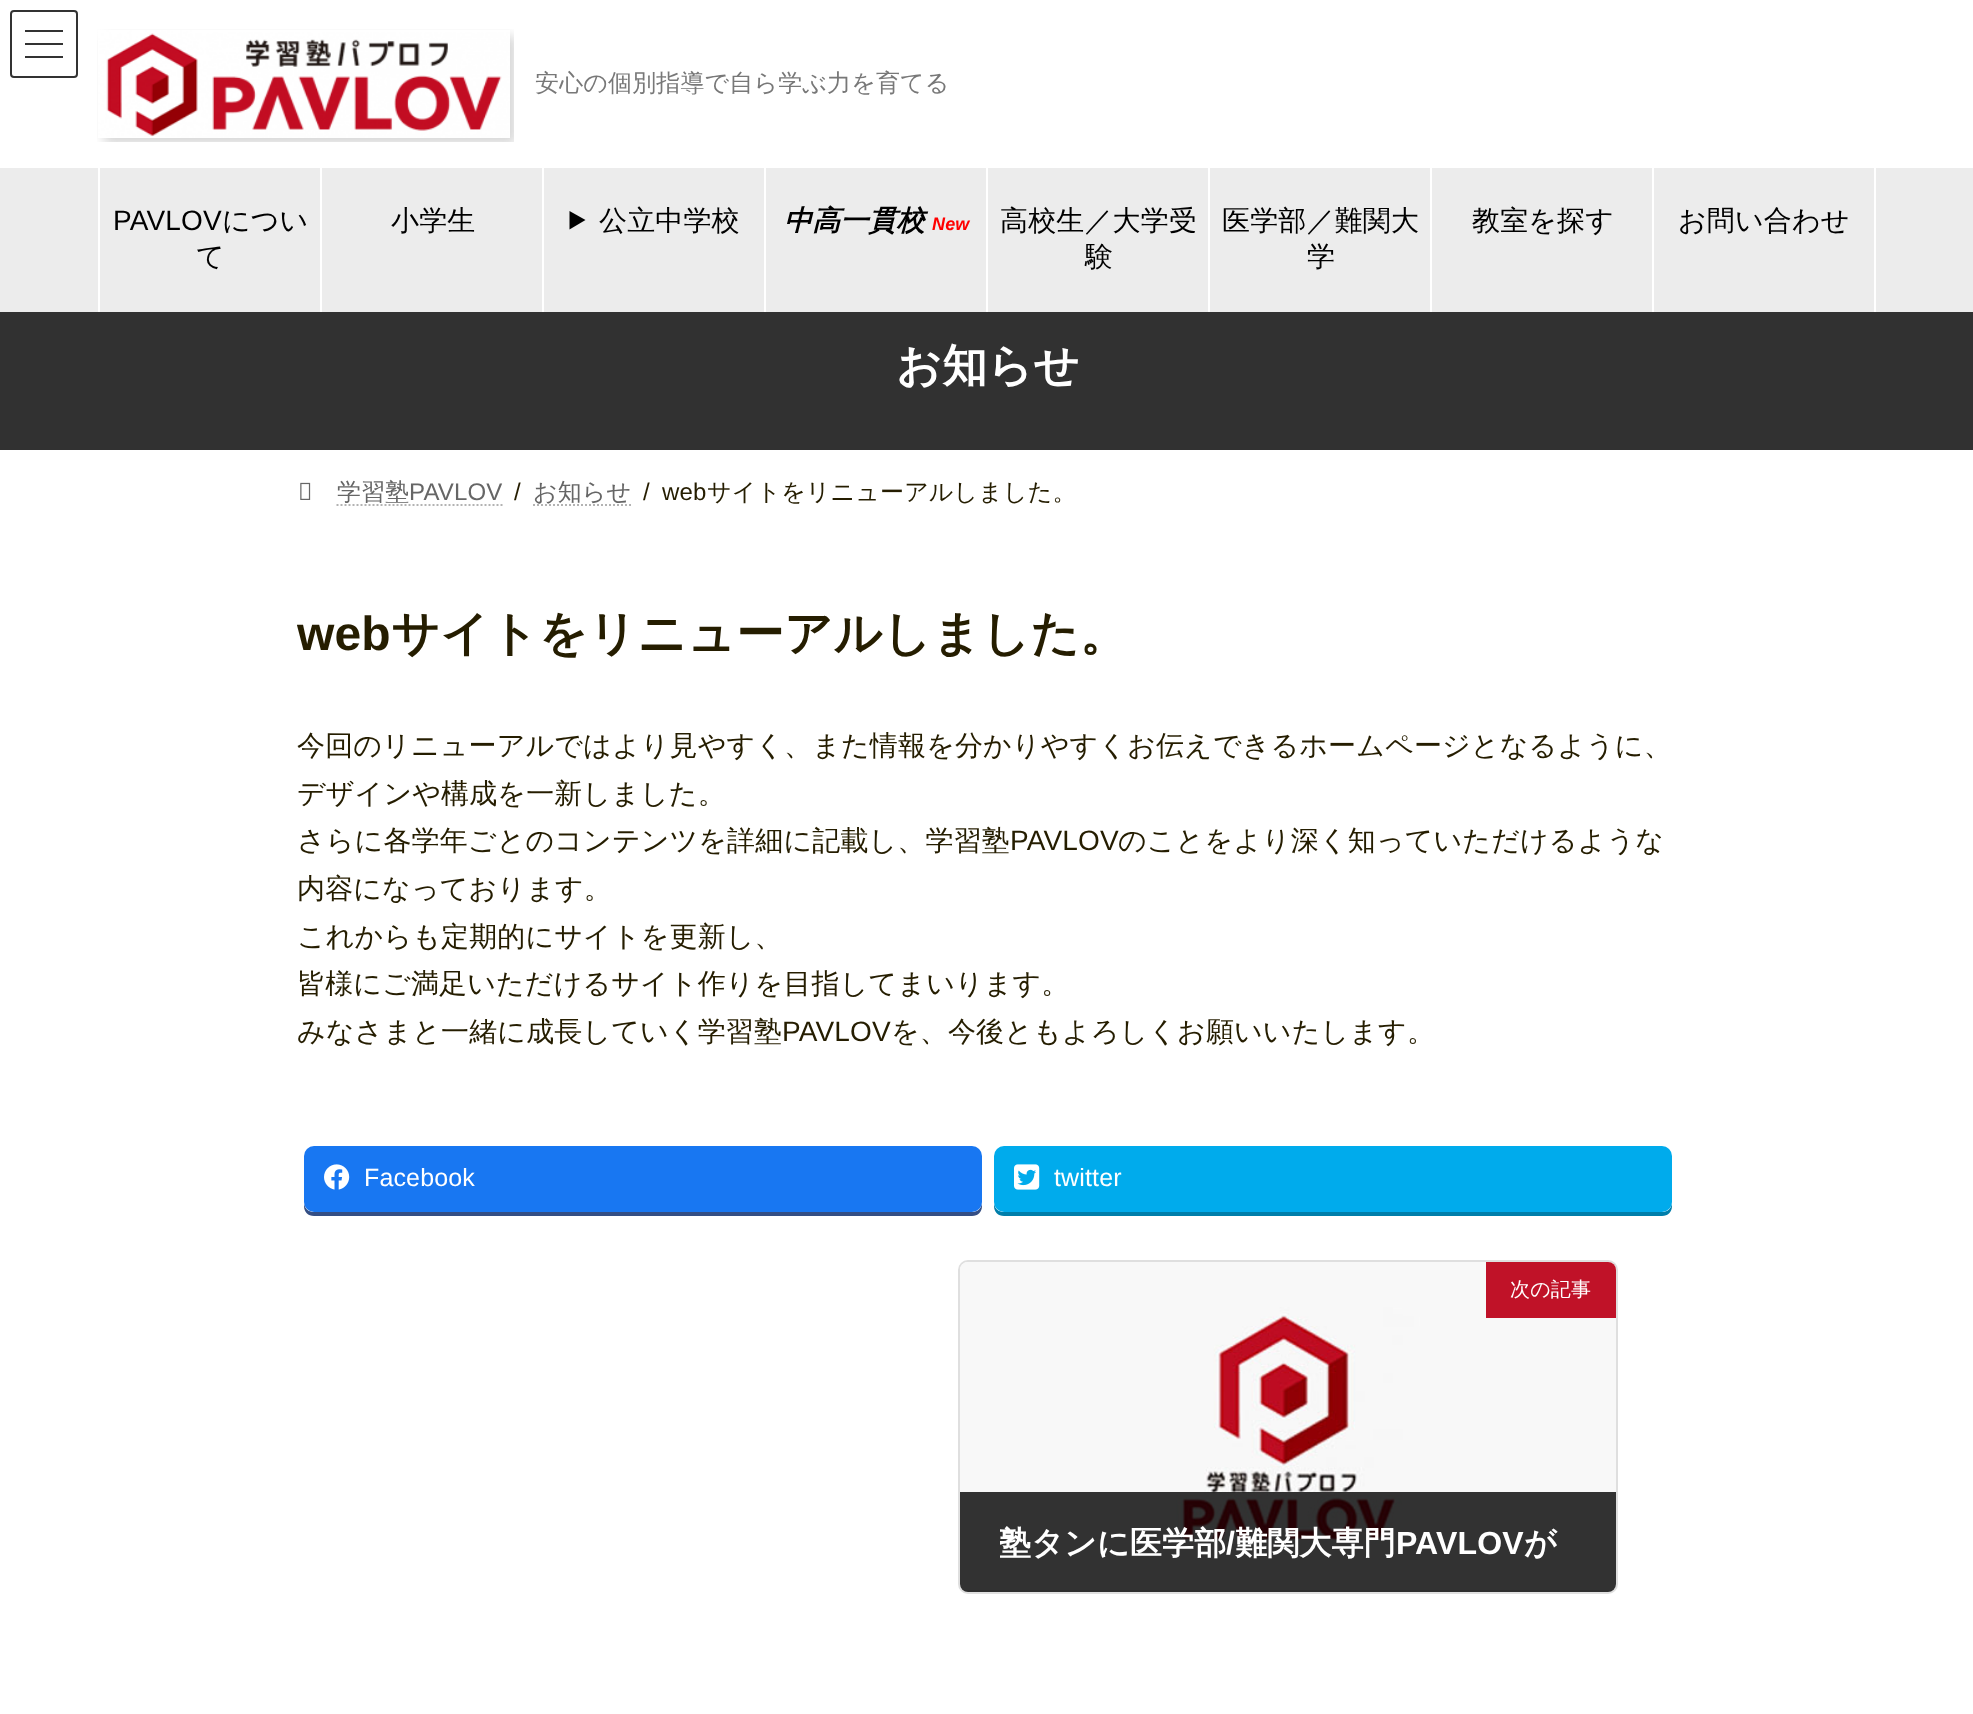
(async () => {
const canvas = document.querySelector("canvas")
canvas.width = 1973
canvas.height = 1714
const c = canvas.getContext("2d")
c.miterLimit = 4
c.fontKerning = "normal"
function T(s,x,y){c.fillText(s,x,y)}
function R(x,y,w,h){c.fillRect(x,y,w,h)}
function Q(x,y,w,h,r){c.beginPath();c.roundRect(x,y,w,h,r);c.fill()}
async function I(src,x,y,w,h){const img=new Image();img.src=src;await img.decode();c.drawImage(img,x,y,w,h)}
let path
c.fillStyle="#fff"
R(0,0,1973,1714)
await I("1.png",97,29,417,113)
c.letterSpacing="0.15px"
c.font="500 24px WenQuanYi Zen Hei"
c.fillStyle="#787878"
T("安心の個別指導で自ら学ぶ力を育てる",535,91)
c.fillStyle="#ececec"
R(0,168,1973,144)
c.fillStyle="#fff"
R(98,168,2,144)
c.font="28px Liberation Sans"
c.fillStyle="#000"
T("PAVLOV",113,230)
c.font="500 28px WenQuanYi Zen Hei"
T("につい",222,230)
T("て",196,266)
c.fillStyle="#fff"
R(320,168,2,144)
c.fillStyle="#000"
T("小学生",391,230)
c.fillStyle="#fff"
R(542,168,2,144)
c.fillStyle="#000"
path = new Path2D("M569.5 211l16 9l-16 9.5z")
c.fill(path)
T("公立中学校",599,230)
c.fillStyle="#fff"
R(764,168,2,144)
c.font="italic bold 28px WenQuanYi Zen Hei"
c.fillStyle="#000"
T("中高一貫校",784,230)
c.font="italic bold 18px Liberation Sans"
c.fillStyle="#f00"
T("New",932,230)
c.fillStyle="#fff"
R(986,168,2,144)
c.font="500 28px WenQuanYi Zen Hei"
c.fillStyle="#000"
T("高校生／大学受",1000,230)
T("験",1085,266)
c.fillStyle="#fff"
R(1208,168,2,144)
c.fillStyle="#000"
T("医学部／難関大",1222,230)
T("学",1307,266)
c.fillStyle="#fff"
R(1430,168,2,144)
c.fillStyle="#000"
T("教室を探す",1472,230)
c.fillStyle="#fff"
R(1874,168,2,144)
R(1652,168,2,144)
c.fillStyle="#000"
T("お問い合わせ",1678,230)
c.fillStyle="#333"
R(25,30,38,2)
R(25,43,38,2)
R(25,56,38,2)
c.beginPath()
c.roundRect(11,11,66,66,3)
c.strokeStyle="#333"
c.lineWidth=2
c.stroke()
c.fillStyle="#313131"
R(0,312,1973,138)
c.font="bold 45px WenQuanYi Zen Hei"
c.fillStyle="#fff"
T("お知らせ",896,381)
await I("2.png",300,482,11,18)
c.font="500 24px WenQuanYi Zen Hei"
c.fillStyle="#666"
T("学習塾",337,500)
c.font="24px Liberation Sans"
T("PAVLOV",409,500)
path = new Path2D("M336.5 505h166")
c.strokeStyle="#b3b3b3"
c.setLineDash([2,2])
c.stroke(path)
c.fillStyle="#251d00"
T("/",514,500)
c.font="500 24px WenQuanYi Zen Hei"
c.fillStyle="#666"
T("お知らせ",533,500)
path = new Path2D("M533 505h98.5")
c.stroke(path)
c.font="24px Liberation Sans"
c.fillStyle="#251d00"
T("/",643,500)
T("web",662,500)
c.font="500 24px WenQuanYi Zen Hei"
T("サイトをリニューアルしました。",707,500)
c.font="bold 48px Liberation Sans"
T("web",297,650)
c.font="bold 48px WenQuanYi Zen Hei"
T("サイトをリニューアルしました。",391,650)
c.font="500 28px WenQuanYi Zen Hei"
T("今回のリニューアルではより見やすく、また情報を分かりやすくお伝えできるホームページとなるように、",297,755)
T("デザインや構成を一新しました。",297,803)
T("さらに各学年ごとのコンテンツを詳細に記載し、学習塾",297,850)
c.font="28px Liberation Sans"
T("PAVLOV",1010,850)
c.font="500 28px WenQuanYi Zen Hei"
T("のことをより深く知っていただけるような",1118,850)
T("内容になっております。",297,898)
T("これからも定期的にサイトを更新し、",297,946)
T("皆様にご満足いただけるサイト作りを目指してまいります。",297,993)
T("みなさまと一緒に成長していく学習塾",297,1041)
c.font="28px Liberation Sans"
T("PAVLOV",782,1041)
c.font="500 28px WenQuanYi Zen Hei"
T("を、今後ともよろしくお願いいたします。",891,1041)
c.fillStyle="#344e84"
path = new Path2D("M304 1202v4c0 6 4 10 10 10h658c6 0 10-4 10-10v-4c0 6-4 10-10 10h-658c-6 0-10-4-10-10z")
c.fill(path)
c.fillStyle="#1877f2"
Q(304,1146,678,66,10)
await I("3.png",324,1164,26,26)
c.font="25px Liberation Sans"
c.fillStyle="#fff"
T("Facebook",364,1186)
c.fillStyle="#007eaa"
path = new Path2D("M994 1202v4c0 6 4 10 10 10h658c6 0 10-4 10-10v-4c0 6-4 10-10 10h-658c-6 0-10-4-10-10z")
c.fill(path)
c.fillStyle="#00abec"
Q(994,1146,678,66,10)
await I("4.png",1014,1164,26,26)
c.fillStyle="#fff"
T("twitter",1054,1186)
c.beginPath()
c.roundRect(959,1261,658,332,9)
c.strokeStyle="#dfdfdf"
c.setLineDash([])
c.stroke()
await I("5.png",960,1262,656,330)
c.save()
c.beginPath()
c.roundRect(960,1262,656,330,8)
c.clip()
c.fillStyle="#e5e5e5"
R(960,1590,656,2)
c.restore()
c.fillStyle="#c01228"
c.beginPath()
c.roundRect(1486,1262,130,56,[0,8,0,0])
c.fill()
c.font="500 20px WenQuanYi Zen Hei"
c.fillStyle="#fff"
T("次の記事",1510,1296)
c.fillStyle="#000000cc"
c.beginPath()
c.roundRect(960,1492,656,100,[0,0,8,8])
c.fill()
c.save()
c.beginPath()
c.rect(1000,1522,576,46)
c.clip()
c.font="bold 32px WenQuanYi Zen Hei"
c.fillStyle="#fff"
T("塾タンに医学部",999,1554)
c.restore()
c.font="bold 32px Liberation Sans"
c.fillStyle="#fff"
T("/",1226,1554)
c.font="bold 32px WenQuanYi Zen Hei"
T("難関大専門",1235,1554)
c.font="bold 32px Liberation Sans"
T("PAVLOV",1396,1554)
c.font="bold 32px WenQuanYi Zen Hei"
T("が",1524,1554)
})()
